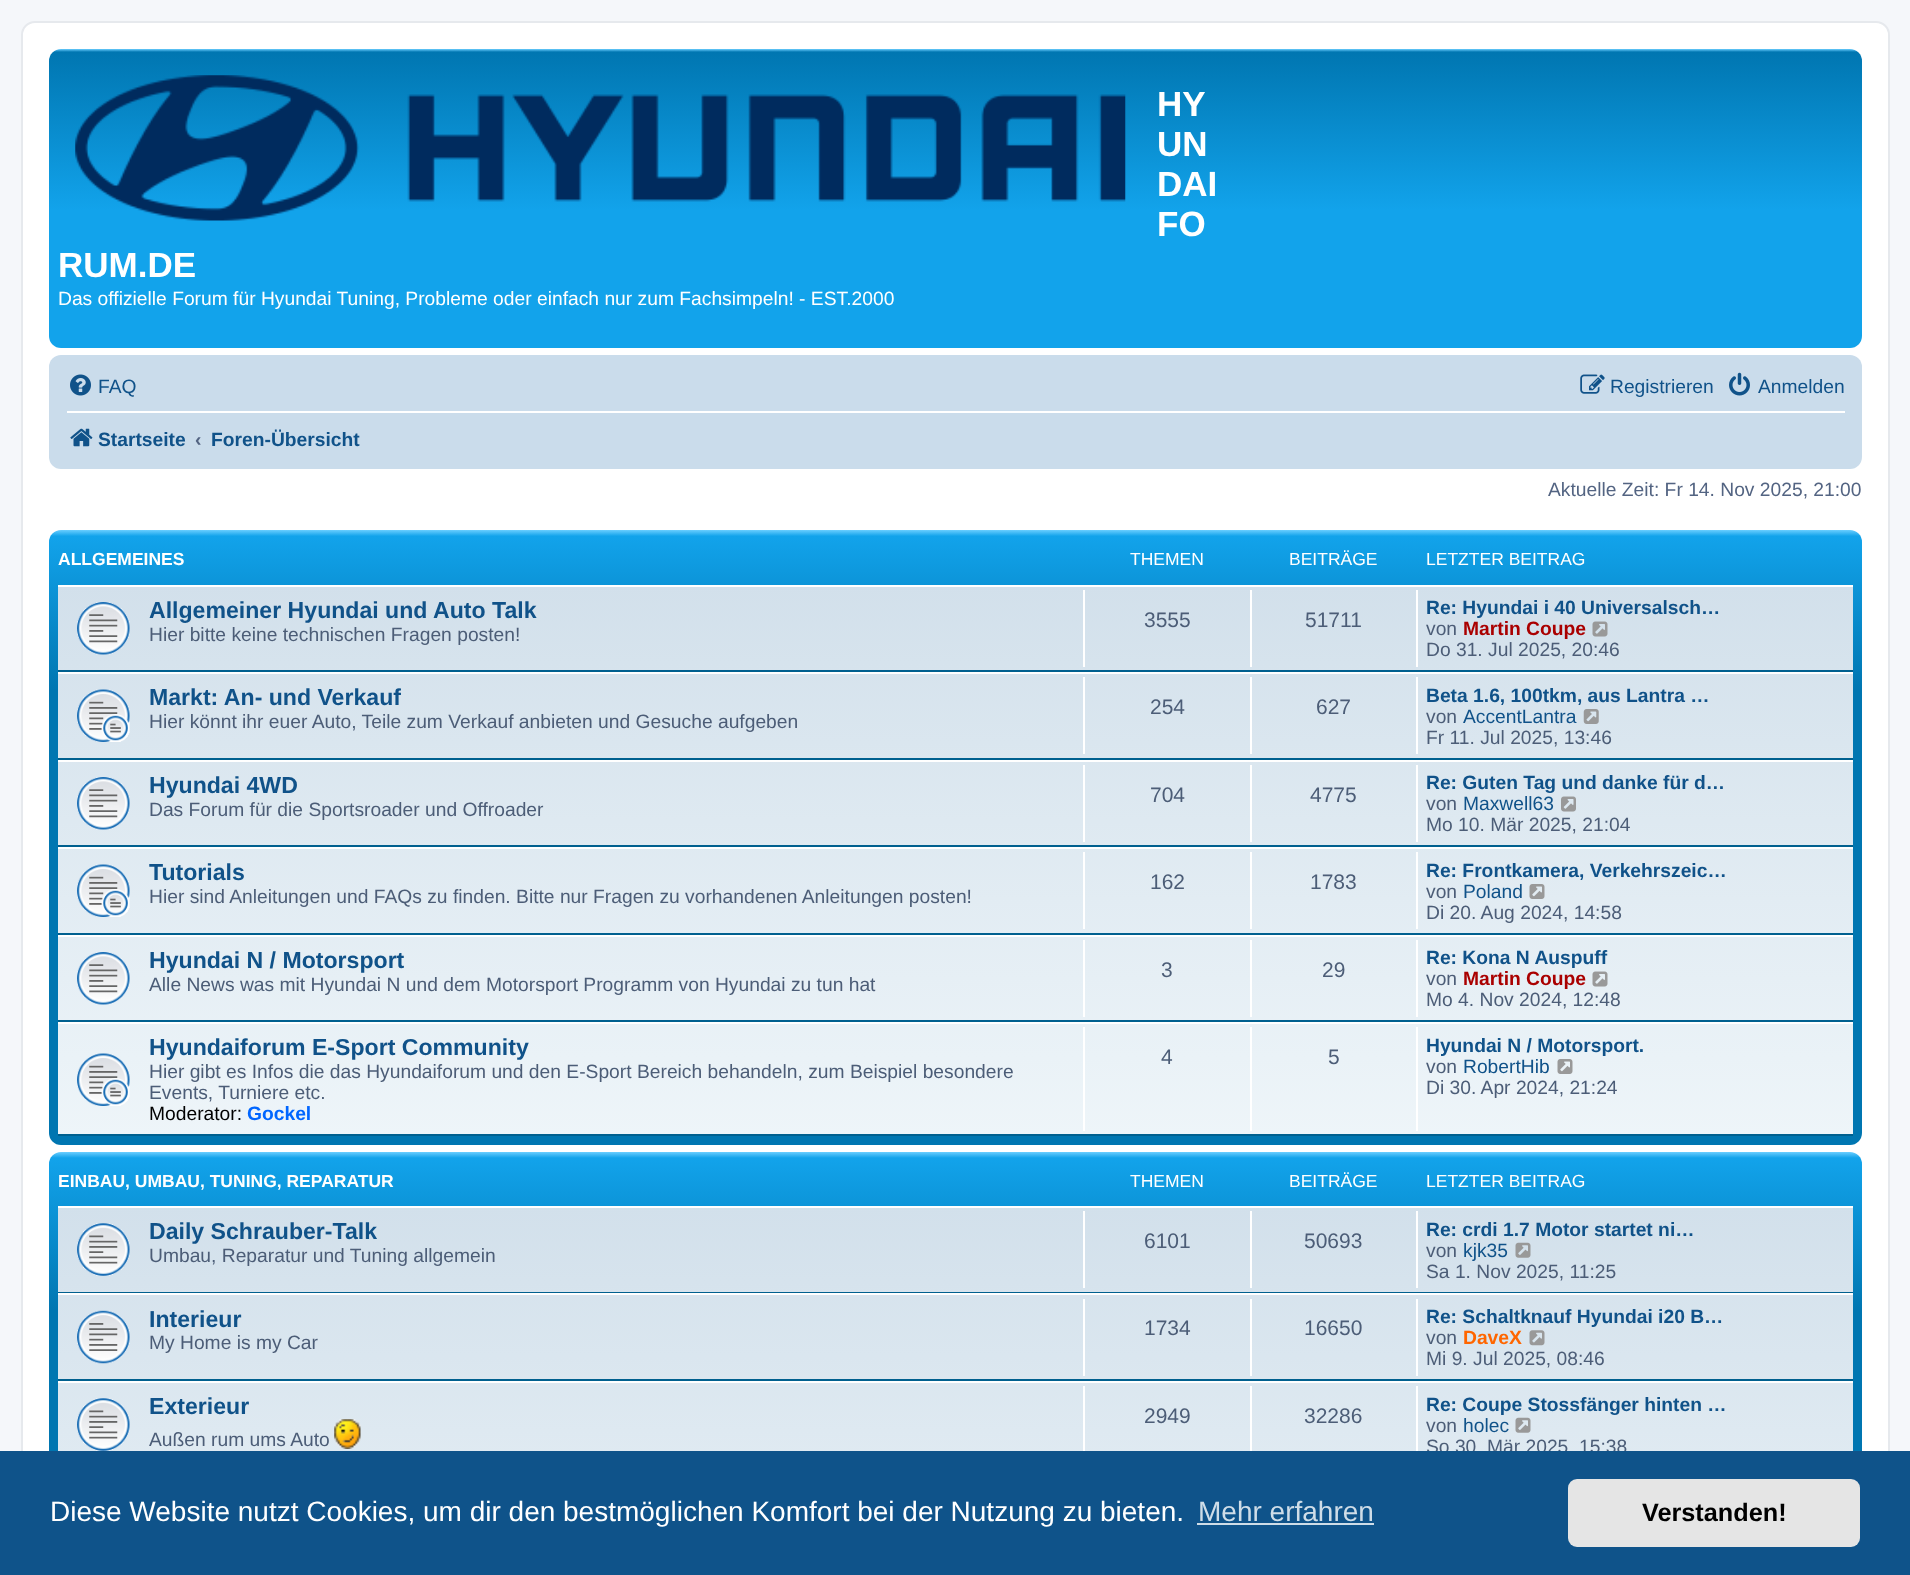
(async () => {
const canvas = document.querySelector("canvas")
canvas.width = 1910
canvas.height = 1575
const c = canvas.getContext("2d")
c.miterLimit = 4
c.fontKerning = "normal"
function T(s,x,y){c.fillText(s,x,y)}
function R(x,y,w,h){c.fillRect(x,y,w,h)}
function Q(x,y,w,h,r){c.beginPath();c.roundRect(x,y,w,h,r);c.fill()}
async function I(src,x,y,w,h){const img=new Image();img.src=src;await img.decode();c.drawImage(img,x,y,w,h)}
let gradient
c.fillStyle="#f5f7fa"
R(0,0,1910,1575)
c.fillStyle="#fff"
c.beginPath()
c.roundRect(22,22,1867,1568,13)
c.fill()
c.strokeStyle="#e6e9ed"
c.lineWidth=2
c.stroke()
gradient = c.createLinearGradient(956,49,956,348)
gradient.addColorStop(0,"#6aceff")
gradient.addColorStop(.01,"#0076b1")
gradient.addColorStop(.54,"#12a3eb")
gradient.addColorStop(1,"#12a3eb")
c.fillStyle = gradient
Q(49,49,1813,299,12)
await I("1.png",75,75,1051,146)
c.font="bold 35px Liberation Sans"
c.fillStyle="#fff"
T("HY",1157,116)
T("UN",1157,156)
T("DAI",1157,196)
T("FO",1157,236)
T("RUM.DE",58,277)
c.font="19.25px Liberation Sans"
T("Das offizielle Forum für Hyundai Tuning, Probleme oder einfach nur zum Fachsimpeln! - EST.2000",58,305)
c.fillStyle="#cadceb"
Q(49,355,1813,114,12)
await I("2.png",70,374,21,22)
c.fillStyle="#105289"
T("FAQ",98,393)
await I("3.png",1580,374,25,20)
T("Registrieren",1610,393)
await I("4.png",1729,372,21,24)
T("Anmelden",1758,393)
c.fillStyle="#fff"
R(67,411,1778,2)
await I("5.png",70,428,23,19)
c.font="bold 19.25px Liberation Sans"
c.fillStyle="#105289"
T("Startseite",98,446)
c.fillStyle="#536482"
T("‹",195,446)
c.fillStyle="#105289"
T("Foren-Übersicht",211,446)
c.font="19.25px Liberation Sans"
c.fillStyle="#536482"
T("Aktuelle Zeit: Fr 14. Nov 2025, 21:00",1548,496)
gradient = c.createLinearGradient(956,530,956,1145)
gradient.addColorStop(0,"#6aceff")
gradient.addColorStop(.01,"#12a3eb")
gradient.addColorStop(.26,"#0076b1")
gradient.addColorStop(1,"#0076b1")
c.fillStyle = gradient
Q(49,530,1813,615,12)
c.font="bold 17.5px Liberation Sans"
c.fillStyle="#fff"
T("ALLGEMEINES",58,565)
c.font="17.5px Liberation Sans"
T("THEMEN",1130,565)
T("BEITRÄGE",1289,565)
T("LETZTER BEITRAG",1426,565)
gradient = c.createLinearGradient(956,584,956,1136)
gradient.addColorStop(0,"#d2e0eb")
gradient.addColorStop(1,"#eef5f9")
c.fillStyle = gradient
R(58,587,1795,547)
c.fillStyle="#fff"
R(58,585,1795,2)
c.fillStyle="#00608f"
R(58,670,1795,2)
await I("6.png",77,602,53,53)
c.font="bold 23.1px Liberation Sans"
c.fillStyle="#105289"
T("Allgemeiner Hyundai und Auto Talk",149,618)
c.font="19.25px Liberation Sans"
c.fillStyle="#4c5d77"
T("Hier bitte keine technischen Fragen posten!",149,641)
c.fillStyle="#fff"
R(1083,590,2,77)
c.font="21px Liberation Sans"
c.fillStyle="#4c5d77"
T("3555",1144,627)
c.fillStyle="#fff"
R(1250,590,2,77)
c.fillStyle="#4c5d77"
T("51711",1305,627)
c.fillStyle="#fff"
R(1416,590,2,77)
c.font="bold 19.25px Liberation Sans"
c.fillStyle="#105289"
T("Re: Hyundai i 40 Universalsch…",1426,614)
c.font="19.25px Liberation Sans"
c.fillStyle="#4c5d77"
T("von",1426,635)
c.font="bold 19.25px Liberation Sans"
c.fillStyle="#a00"
T("Martin Coupe",1463,635)
await I("7.png",1592,621,16,16)
c.font="19.25px Liberation Sans"
c.fillStyle="#4c5d77"
T("Do 31. Jul 2025, 20:46",1426,656)
c.fillStyle="#fff"
R(58,672,1795,2)
c.fillStyle="#00608f"
R(58,758,1795,2)
await I("8.png",77,689,53,53)
c.font="bold 23.1px Liberation Sans"
c.fillStyle="#105289"
T("Markt: An- und Verkauf",149,705)
c.font="19.25px Liberation Sans"
c.fillStyle="#4c5d77"
T("Hier könnt ihr euer Auto, Teile zum Verkauf anbieten und Gesuche aufgeben",149,728)
c.fillStyle="#fff"
R(1083,677,2,77)
c.font="21px Liberation Sans"
c.fillStyle="#4c5d77"
T("254",1150,714)
c.fillStyle="#fff"
R(1250,677,2,77)
c.fillStyle="#4c5d77"
T("627",1316,714)
c.fillStyle="#fff"
R(1416,677,2,77)
c.font="bold 19.25px Liberation Sans"
c.fillStyle="#105289"
T("Beta 1.6, 100tkm, aus Lantra …",1426,702)
c.font="19.25px Liberation Sans"
c.fillStyle="#4c5d77"
T("von",1426,723)
c.fillStyle="#105289"
T("AccentLantra",1463,723)
await I("9.png",1583,709,16,15)
c.fillStyle="#4c5d77"
T("Fr 11. Jul 2025, 13:46",1426,744)
c.fillStyle="#fff"
R(58,760,1795,2)
c.fillStyle="#00608f"
R(58,845,1795,2)
await I("10.png",77,777,53,53)
c.font="bold 23.1px Liberation Sans"
c.fillStyle="#105289"
T("Hyundai 4WD",149,793)
c.font="19.25px Liberation Sans"
c.fillStyle="#4c5d77"
T("Das Forum für die Sportsroader und Offroader",149,816)
c.fillStyle="#fff"
R(1083,765,2,77)
c.font="21px Liberation Sans"
c.fillStyle="#4c5d77"
T("704",1150,802)
c.fillStyle="#fff"
R(1250,765,2,77)
c.fillStyle="#4c5d77"
T("4775",1310,802)
c.fillStyle="#fff"
R(1416,765,2,77)
c.font="bold 19.25px Liberation Sans"
c.fillStyle="#105289"
T("Re: Guten Tag und danke für d…",1426,789)
c.font="19.25px Liberation Sans"
c.fillStyle="#4c5d77"
T("von",1426,810)
c.fillStyle="#105289"
T("Maxwell63",1463,810)
await I("11.png",1561,796,15,16)
c.fillStyle="#4c5d77"
T("Mo 10. Mär 2025, 21:04",1426,831)
c.fillStyle="#fff"
R(58,847,1795,2)
c.fillStyle="#00608f"
R(58,933,1795,2)
await I("12.png",77,864,53,53)
c.font="bold 23.1px Liberation Sans"
c.fillStyle="#105289"
T("Tutorials",149,880)
c.font="19.25px Liberation Sans"
c.fillStyle="#4c5d77"
T("Hier sind Anleitungen und FAQs zu finden. Bitte nur Fragen zu vorhandenen Anleitungen posten!",149,903)
c.fillStyle="#fff"
R(1083,852,2,77)
c.font="21px Liberation Sans"
c.fillStyle="#4c5d77"
T("162",1150,889)
c.fillStyle="#fff"
R(1250,852,2,77)
c.fillStyle="#4c5d77"
T("1783",1310,889)
c.fillStyle="#fff"
R(1416,852,2,77)
c.font="bold 19.25px Liberation Sans"
c.fillStyle="#105289"
T("Re: Frontkamera, Verkehrszeic…",1426,877)
c.font="19.25px Liberation Sans"
c.fillStyle="#4c5d77"
T("von",1426,898)
c.fillStyle="#105289"
T("Poland",1463,898)
await I("13.png",1529,884,16,15)
c.fillStyle="#4c5d77"
T("Di 20. Aug 2024, 14:58",1426,919)
c.fillStyle="#fff"
R(58,935,1795,2)
c.fillStyle="#00608f"
R(58,1020,1795,2)
await I("14.png",77,952,53,53)
c.font="bold 23.1px Liberation Sans"
c.fillStyle="#105289"
T("Hyundai N / Motorsport",149,968)
c.font="19.25px Liberation Sans"
c.fillStyle="#4c5d77"
T("Alle News was mit Hyundai N und dem Motorsport Programm von Hyundai zu tun hat",149,991)
c.fillStyle="#fff"
R(1083,940,2,77)
c.font="21px Liberation Sans"
c.fillStyle="#4c5d77"
T("3",1161,977)
c.fillStyle="#fff"
R(1250,940,2,77)
c.fillStyle="#4c5d77"
T("29",1322,977)
c.fillStyle="#fff"
R(1416,940,2,77)
c.font="bold 19.25px Liberation Sans"
c.fillStyle="#105289"
T("Re: Kona N Auspuff",1426,964)
c.font="19.25px Liberation Sans"
c.fillStyle="#4c5d77"
T("von",1426,985)
c.font="bold 19.25px Liberation Sans"
c.fillStyle="#a00"
T("Martin Coupe",1463,985)
await I("15.png",1592,971,16,16)
c.font="19.25px Liberation Sans"
c.fillStyle="#4c5d77"
T("Mo 4. Nov 2024, 12:48",1426,1006)
c.fillStyle="#fff"
R(58,1022,1795,2)
c.fillStyle="#00608f"
R(58,1134,1795,2)
await I("16.png",77,1053,53,53)
c.font="bold 23.1px Liberation Sans"
c.fillStyle="#105289"
T("Hyundaiforum E-Sport Community",149,1055)
c.font="19.25px Liberation Sans"
c.fillStyle="#4c5d77"
T("Hier gibt es Infos die das Hyundaiforum und den E-Sport Bereich behandeln, zum Beispiel besondere",149,1078)
T("Events, Turniere etc.",149,1099)
c.fillStyle="#000"
T("Moderator:",149,1120)
c.font="bold 19.25px Liberation Sans"
c.fillStyle="#06f"
T("Gockel",247,1120)
c.fillStyle="#fff"
R(1083,1027,2,104)
c.font="21px Liberation Sans"
c.fillStyle="#4c5d77"
T("4",1161,1064)
c.fillStyle="#fff"
R(1250,1027,2,104)
c.fillStyle="#4c5d77"
T("5",1328,1064)
c.fillStyle="#fff"
R(1416,1027,2,104)
c.font="bold 19.25px Liberation Sans"
c.fillStyle="#105289"
T("Hyundai N / Motorsport.",1426,1052)
c.font="19.25px Liberation Sans"
c.fillStyle="#4c5d77"
T("von",1426,1073)
c.fillStyle="#105289"
T("RobertHib",1463,1073)
await I("17.png",1557,1059,16,15)
c.fillStyle="#4c5d77"
T("Di 30. Apr 2024, 21:24",1426,1094)
gradient = c.createLinearGradient(956,1152,956,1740)
gradient.addColorStop(0,"#6aceff")
gradient.addColorStop(.01,"#12a3eb")
gradient.addColorStop(.27,"#0076b1")
gradient.addColorStop(1,"#0076b1")
c.fillStyle = gradient
Q(49,1152,1813,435,12)
c.font="bold 17.5px Liberation Sans"
c.fillStyle="#fff"
T("EINBAU, UMBAU, TUNING, REPARATUR",58,1187)
c.font="17.5px Liberation Sans"
T("THEMEN",1130,1187)
T("BEITRÄGE",1289,1187)
T("LETZTER BEITRAG",1426,1187)
gradient = c.createLinearGradient(956,1206,956,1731)
gradient.addColorStop(0,"#d2e0eb")
gradient.addColorStop(1,"#eef5f9")
c.fillStyle = gradient
R(58,1208,1795,243)
c.fillStyle="#fff"
R(58,1206,1795,2)
c.fillStyle="#00608f"
R(58,1292,1795,1)
await I("18.png",77,1223,53,53)
c.font="bold 23.1px Liberation Sans"
c.fillStyle="#105289"
T("Daily Schrauber-Talk",149,1239)
c.font="19.25px Liberation Sans"
c.fillStyle="#4c5d77"
T("Umbau, Reparatur und Tuning allgemein",149,1262)
c.fillStyle="#fff"
R(1083,1211,2,77)
c.font="21px Liberation Sans"
c.fillStyle="#4c5d77"
T("6101",1144,1248)
c.fillStyle="#fff"
R(1250,1211,2,77)
c.fillStyle="#4c5d77"
T("50693",1304,1248)
c.fillStyle="#fff"
R(1416,1211,2,77)
c.font="bold 19.25px Liberation Sans"
c.fillStyle="#105289"
T("Re: crdi 1.7 Motor startet ni…",1426,1236)
c.font="19.25px Liberation Sans"
c.fillStyle="#4c5d77"
T("von",1426,1257)
c.fillStyle="#105289"
T("kjk35",1463,1257)
await I("19.png",1515,1242,16,16)
c.fillStyle="#4c5d77"
T("Sa 1. Nov 2025, 11:25",1426,1278)
c.fillStyle="#fff"
R(58,1293,1795,2)
c.fillStyle="#00608f"
R(58,1379,1795,2)
await I("20.png",77,1310,53,54)
c.font="bold 23.1px Liberation Sans"
c.fillStyle="#105289"
T("Interieur",149,1327)
c.font="19.25px Liberation Sans"
c.fillStyle="#4c5d77"
T("My Home is my Car",149,1349)
c.fillStyle="#fff"
R(1083,1299,2,77)
c.font="21px Liberation Sans"
c.fillStyle="#4c5d77"
T("1734",1144,1335)
c.fillStyle="#fff"
R(1250,1299,2,77)
c.fillStyle="#4c5d77"
T("16650",1304,1335)
c.fillStyle="#fff"
R(1416,1299,2,77)
c.font="bold 19.25px Liberation Sans"
c.fillStyle="#105289"
T("Re: Schaltknauf Hyundai i20 B…",1426,1323)
c.font="19.25px Liberation Sans"
c.fillStyle="#4c5d77"
T("von",1426,1344)
c.font="bold 19.25px Liberation Sans"
c.fillStyle="#f60"
T("DaveX",1463,1344)
await I("21.png",1529,1330,16,16)
c.font="19.25px Liberation Sans"
c.fillStyle="#4c5d77"
T("Mi 9. Jul 2025, 08:46",1426,1365)
c.fillStyle="#fff"
R(58,1381,1795,2)
await I("22.png",77,1398,53,53)
c.font="bold 23.1px Liberation Sans"
c.fillStyle="#105289"
T("Exterieur",149,1414)
c.font="19.25px Liberation Sans"
c.fillStyle="#4c5d77"
T("Außen rum ums Auto",149,1446)
await I("23.png",334,1419,27,30)
c.fillStyle="#fff"
R(1083,1386,2,65)
c.font="21px Liberation Sans"
c.fillStyle="#4c5d77"
T("2949",1144,1423)
c.fillStyle="#fff"
R(1250,1386,2,65)
c.fillStyle="#4c5d77"
T("32286",1304,1423)
c.fillStyle="#fff"
R(1416,1386,2,65)
c.font="bold 19.25px Liberation Sans"
c.fillStyle="#105289"
T("Re: Coupe Stossfänger hinten …",1426,1411)
c.font="19.25px Liberation Sans"
c.fillStyle="#4c5d77"
T("von",1426,1432)
c.fillStyle="#105289"
T("holec",1463,1432)
await I("24.png",1515,1417,16,16)
c.fillStyle="#4c5d77"
T("So 30. Mär 2025, 15:38",1426,1453)
c.fillStyle="#0f538a"
R(0,1451,1910,124)
c.font="28px Liberation Sans"
c.fillStyle="#fff"
T("Diese Website nutzt Cookies, um dir den bestmöglichen Komfort bei der Nutzung zu bieten.",50,1521)
c.fillStyle="#cfdde8"
T("Mehr erfahren",1198,1521)
R(1197,1523,177,2)
c.fillStyle="#e5e5e5"
Q(1568,1479,292,68,9)
c.font="bold 25.25px Liberation Sans"
c.fillStyle="#000"
T("Verstanden!",1642,1521)
})()
